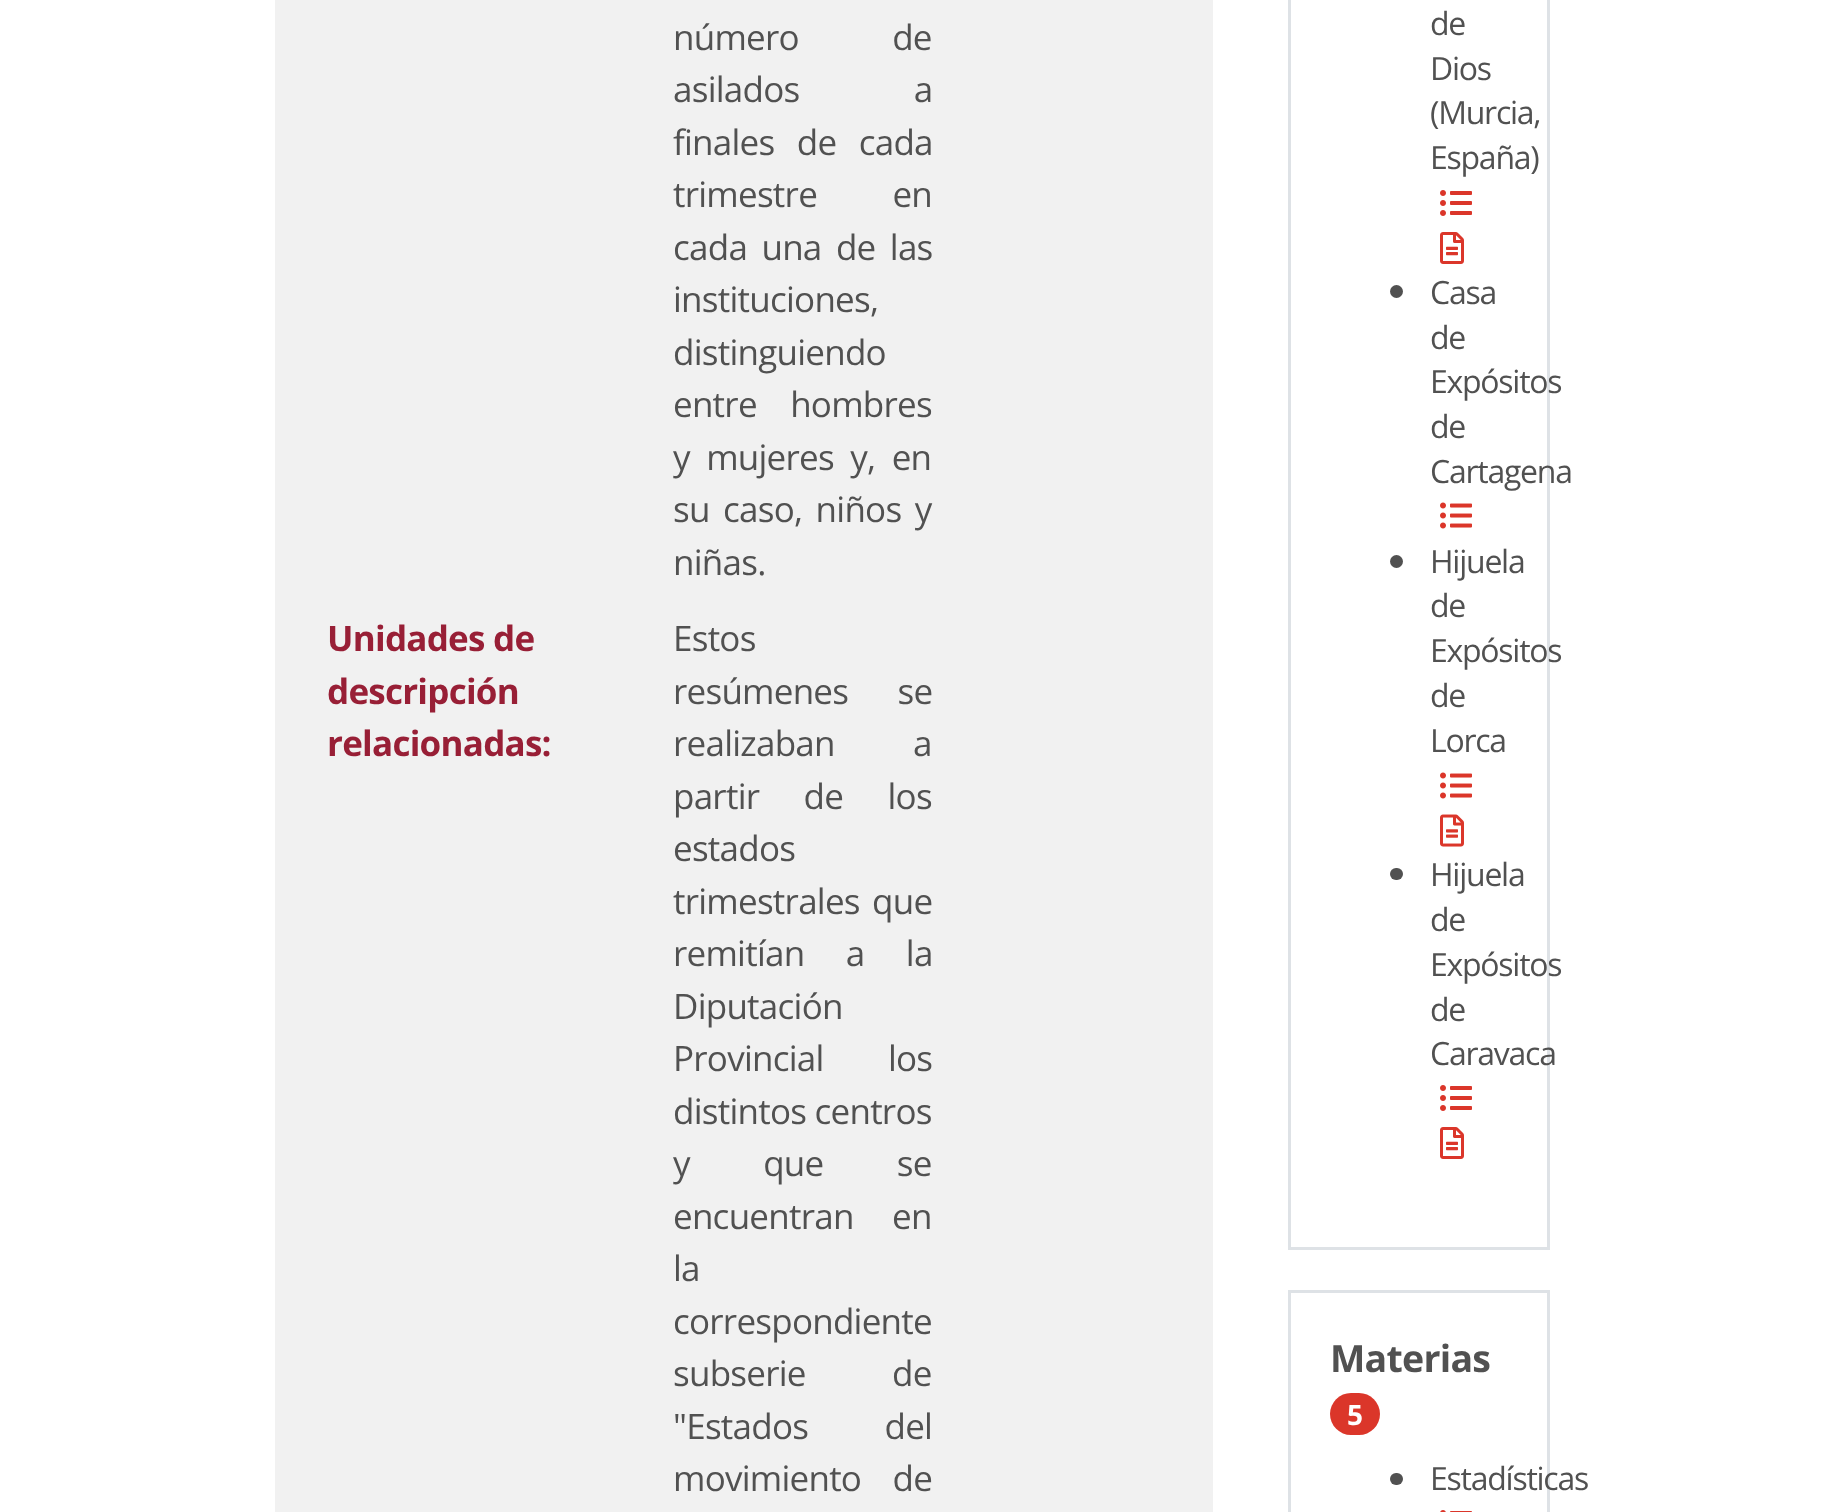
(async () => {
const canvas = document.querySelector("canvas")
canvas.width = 1824
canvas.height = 1512
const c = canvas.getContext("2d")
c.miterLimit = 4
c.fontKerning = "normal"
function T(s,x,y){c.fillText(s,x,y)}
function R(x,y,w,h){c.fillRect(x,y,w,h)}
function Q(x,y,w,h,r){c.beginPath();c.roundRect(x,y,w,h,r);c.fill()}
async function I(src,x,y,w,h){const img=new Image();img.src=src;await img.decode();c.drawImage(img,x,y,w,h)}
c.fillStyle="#fff"
R(0,0,1824,1512)
c.fillStyle="#f1f1f1"
R(275,0,938,1512)
c.letterSpacing="-0.75px"
c.wordSpacing="85px"
c.font="35px Open Sans"
c.fillStyle="#515151"
T("número de",673,50)
c.wordSpacing="106px"
T("asilados a",673,102)
c.wordSpacing="14px"
T("finales de cada",673,155)
c.wordSpacing="67px"
T("trimestre en",673,207)
c.wordSpacing="6px"
T("cada una de las",673,260)
c.wordSpacing="0px"
T("instituciones,",673,312)
T("distinguiendo",673,365)
c.wordSpacing="25px"
T("entre hombres",673,417)
c.wordSpacing="8px"
T("y mujeres y, en",673,470)
c.wordSpacing="5px"
T("su caso, niños y",673,522)
c.wordSpacing="0px"
T("niñas.",673,575)
c.font="bold 35px Open Sans"
c.fillStyle="#981f36"
T("Unidades de",327,651)
T("descripción",327,704)
T("relacionadas:",327,756)
c.font="35px Open Sans"
c.fillStyle="#515151"
T("Estos",673,651)
c.wordSpacing="41px"
T("resúmenes se",673,704)
c.wordSpacing="70px"
T("realizaban a",673,756)
c.wordSpacing="36px"
T("partir de los",673,809)
c.wordSpacing="0px"
T("estados",673,861)
c.wordSpacing="4px"
T("trimestrales que",673,914)
c.wordSpacing="33px"
T("remitían a la",673,966)
c.wordSpacing="0px"
T("Diputación",673,1019)
c.wordSpacing="56px"
T("Provincial los",673,1071)
c.wordSpacing="0px"
T("distintos centros",673,1124)
c.wordSpacing="65px"
T("y que se",673,1176)
c.wordSpacing="30px"
T("encuentran en",673,1229)
c.wordSpacing="0px"
T("la",673,1281)
T("correspondiente",673,1334)
c.wordSpacing="78px"
T("subserie de",673,1386)
c.wordSpacing="68px"
T("\"Estados del",673,1439)
c.wordSpacing="23px"
T("movimiento de",673,1491)
c.strokeStyle="#dee2e6"
c.lineWidth=3
c.strokeRect(1289.5,-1.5,259,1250)
c.letterSpacing="-1.25px"
c.wordSpacing="0px"
c.font="32px Open Sans"
T("de",1430,35)
T("Dios",1430,80)
T("(Murcia,",1430,124)
T("España)",1430,169)
await I("1.png",1440,190,32,26)
await I("2.png",1440,232,24,32)
c.beginPath()
c.arc(1396.5,291.5,6.5,0,7)
c.fill()
T("Casa",1430,304)
T("de",1430,349)
T("Expósitos",1430,393)
T("de",1430,438)
T("Cartagena",1430,483)
await I("3.png",1440,502,32,27)
c.beginPath()
c.arc(1396.5,561.5,6.5,0,7)
c.fill()
T("Hijuela",1430,573)
T("de",1430,617)
T("Expósitos",1430,662)
T("de",1430,707)
T("Lorca",1430,752)
await I("3.png",1440,772,32,27)
await I("4.png",1440,814,24,33)
Q(1390,868,13,12,6)
T("Hijuela",1430,886)
T("de",1430,931)
T("Expósitos",1430,976)
T("de",1430,1021)
T("Caravaca",1430,1065)
await I("1.png",1440,1085,32,26)
await I("2.png",1440,1127,24,32)
c.strokeRect(1289.5,1291.5,259,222)
c.letterSpacing="-0.75px"
c.font="bold 37.5px Open Sans"
T("Materias",1330,1372)
c.fillStyle="#db362a"
Q(1330,1393,50,42,21)
c.font="bold 28px Open Sans"
c.fillStyle="#fff"
T("5",1347,1425)
c.fillStyle="#515151"
Q(1390,1473,13,12,6)
c.letterSpacing="-1.25px"
c.font="32px Open Sans"
T("Estadísticas",1430,1490)
await I("5.png",1440,1510,32,2)
})()
